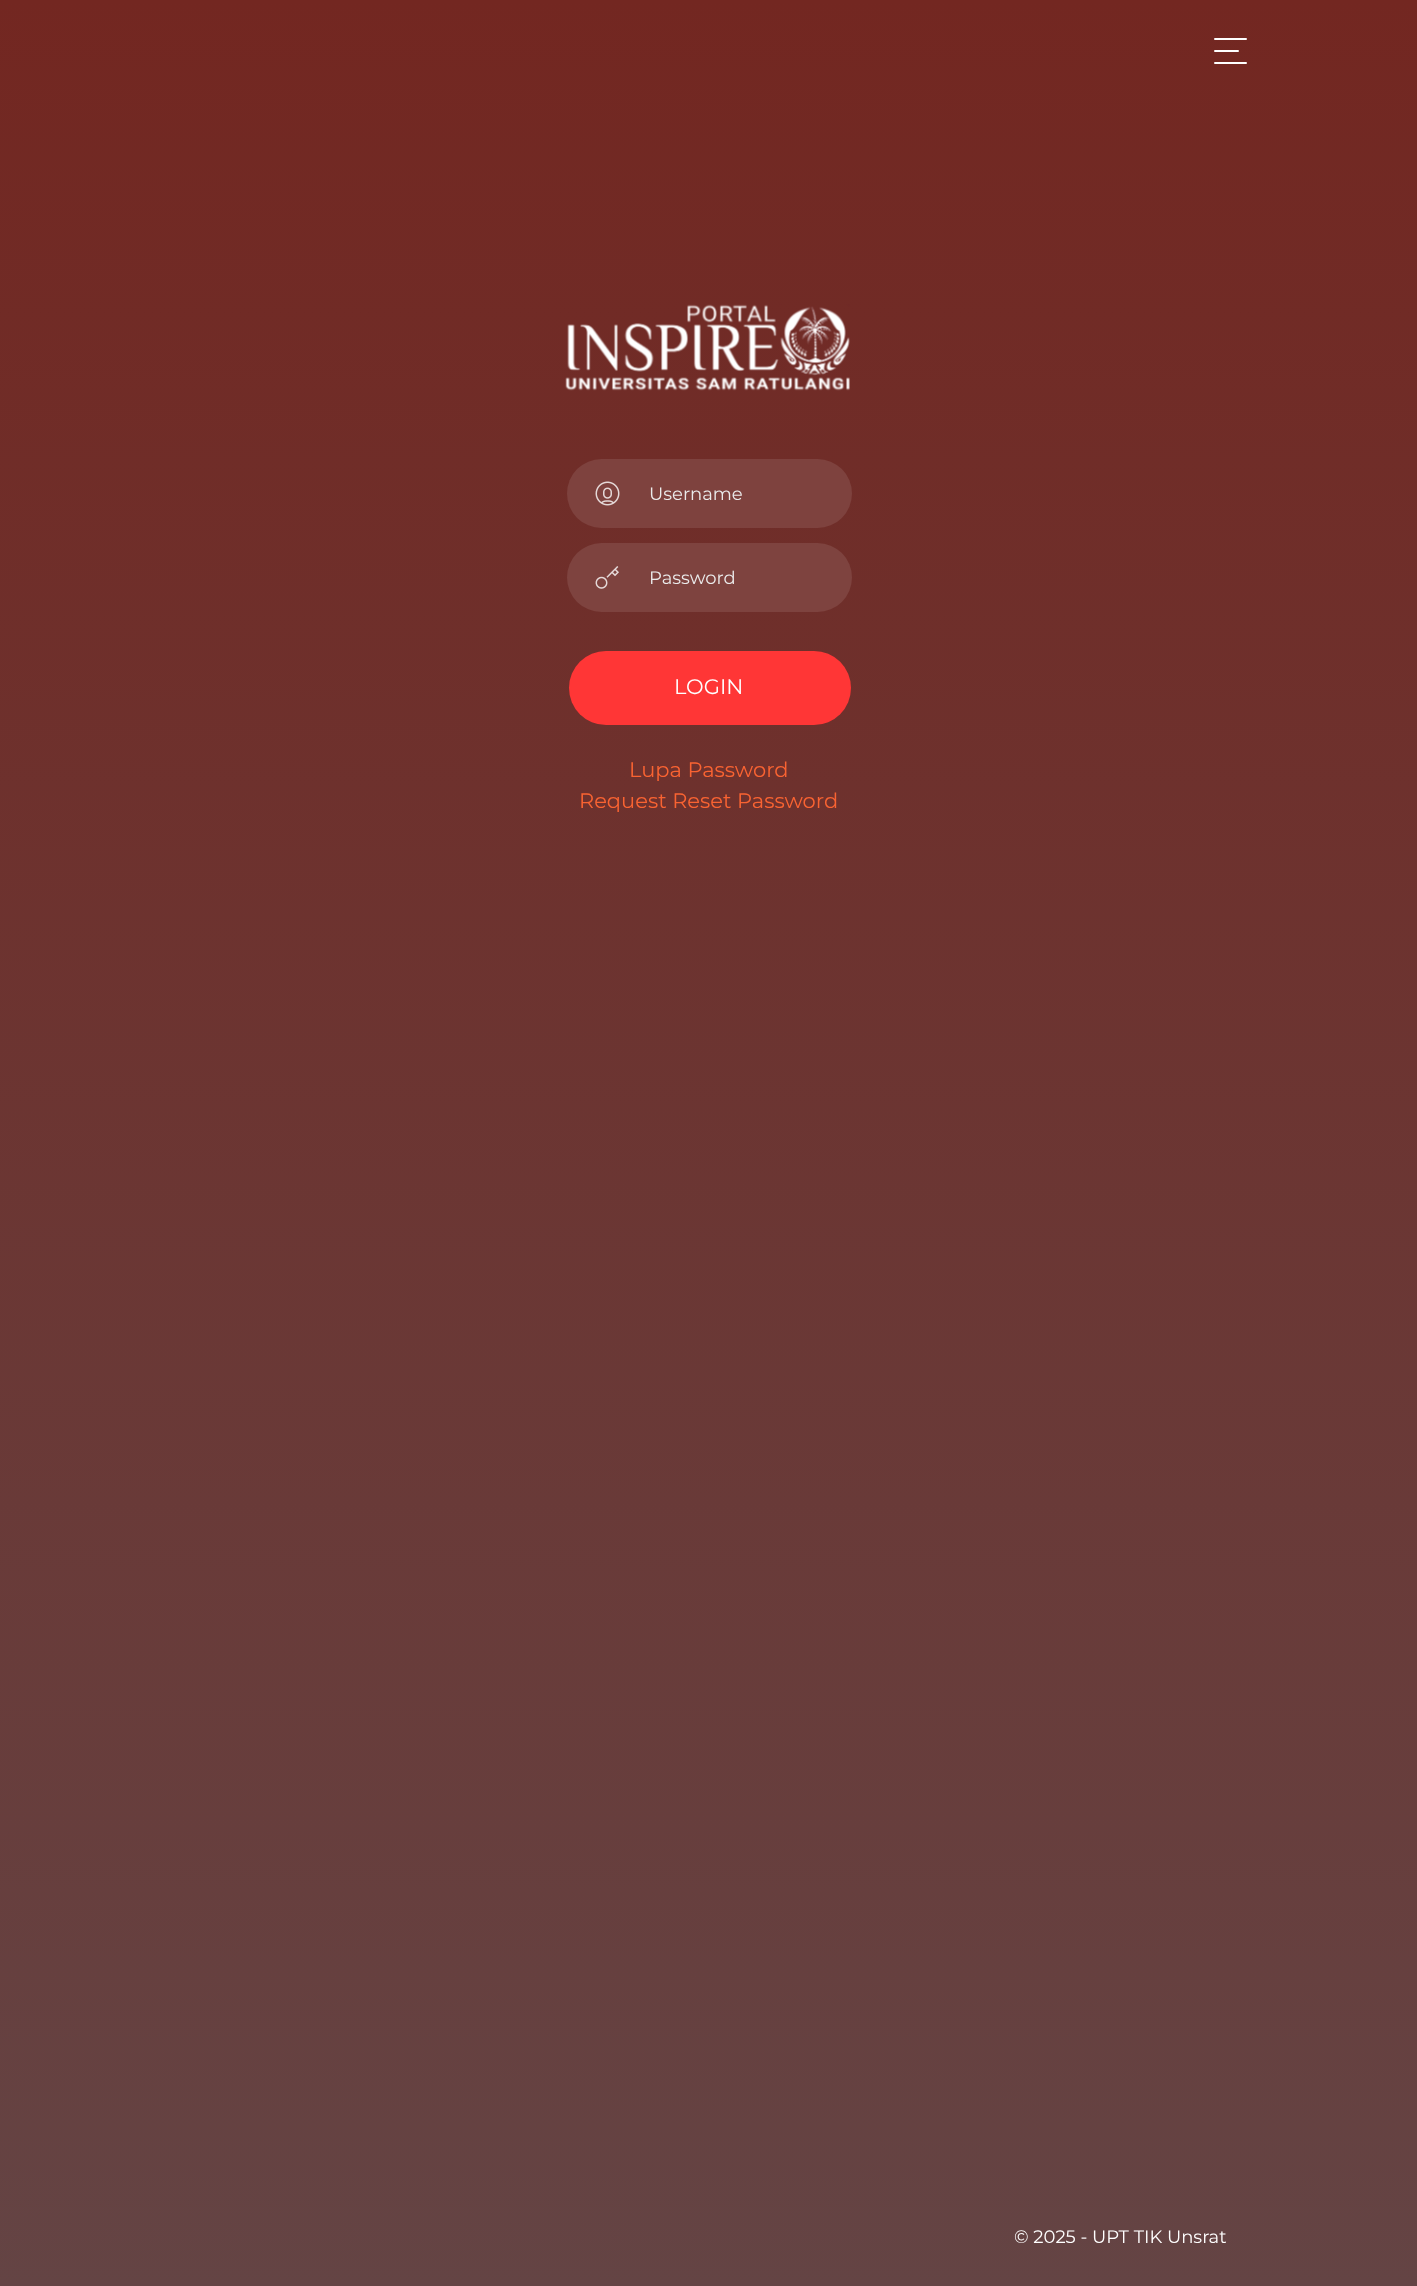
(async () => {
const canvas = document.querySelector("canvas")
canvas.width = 1417
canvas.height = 2286
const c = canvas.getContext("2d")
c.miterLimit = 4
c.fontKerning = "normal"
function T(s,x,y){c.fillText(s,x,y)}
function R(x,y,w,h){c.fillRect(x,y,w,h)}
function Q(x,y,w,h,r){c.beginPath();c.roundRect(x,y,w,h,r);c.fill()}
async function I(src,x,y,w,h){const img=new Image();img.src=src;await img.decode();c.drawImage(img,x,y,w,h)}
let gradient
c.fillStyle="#fff"
R(0,0,1417,2286)
gradient = c.createLinearGradient(709,2286,709,0)
gradient.addColorStop(0,"#644444")
gradient.addColorStop(1,"#732721")
c.fillStyle = gradient
R(0,0,1417,2286)
c.fillStyle="#fff"
Q(1214,38,33,2,1)
Q(1214,50,25,2,1)
Q(1214,62,33,2,1)
await I("1.png",565,304,285,87)
c.fillStyle="#7e423e"
c.beginPath()
c.roundRect(567,459,54,69,[34.5,0,0,34.5])
c.fill()
await I("2.png",595,481,25,25)
c.beginPath()
c.roundRect(621,459,231,69,[0,34.5,34.5,0])
c.fill()
c.font="18px Montserrat"
c.fillStyle="#ebebeb"
T("Username",649,500)
c.fillStyle="#7e433f"
c.beginPath()
c.roundRect(567,543,54,69,[34.5,0,0,34.5])
c.fill()
await I("3.png",595,566,24,23)
c.beginPath()
c.roundRect(621,543,231,69,[0,34.5,34.5,0])
c.fill()
c.fillStyle="#ebebeb"
T("Password",649,584)
c.fillStyle="#ff3636"
Q(569,651,282,74,37)
c.font="21px Montserrat"
c.fillStyle="#fff"
T("LOGIN",674,694)
c.fillStyle="#f96332"
T("Lupa Password",629,777)
T("Request Reset Password",579,808)
c.font="18px Montserrat"
c.fillStyle="#fff"
T("© 2025 - UPT TIK Unsrat",1014,2243)
})()
